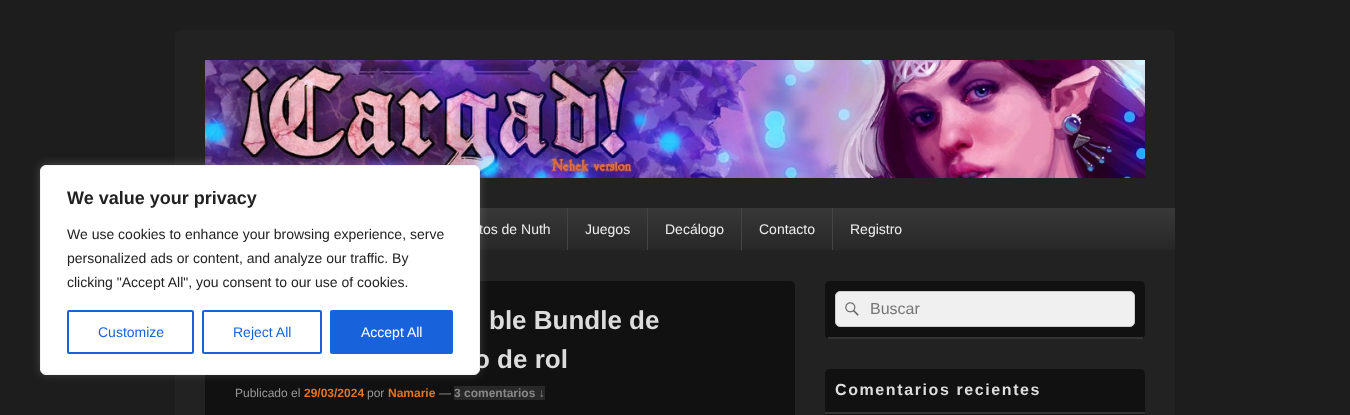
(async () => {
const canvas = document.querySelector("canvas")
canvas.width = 1350
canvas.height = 415
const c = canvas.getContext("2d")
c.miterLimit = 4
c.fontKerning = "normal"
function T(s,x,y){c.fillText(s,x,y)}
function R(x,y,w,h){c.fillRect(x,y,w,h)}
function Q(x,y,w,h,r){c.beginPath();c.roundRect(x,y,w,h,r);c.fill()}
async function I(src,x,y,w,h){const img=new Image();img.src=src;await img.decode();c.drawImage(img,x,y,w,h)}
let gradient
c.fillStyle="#1d1d1d"
R(0,0,1350,415)
c.fillStyle="#222"
c.beginPath()
c.roundRect(175,30,1000,221,[5,5,0,0])
c.fill()
await I("1.png",205,60,940,118)
gradient = c.createLinearGradient(675,208,675,250)
gradient.addColorStop(0,"#383838")
gradient.addColorStop(1,"#272727")
c.fillStyle = gradient
R(480,208,695,42)
c.fillStyle="#222"
R(175,251,1000,164)
c.fillStyle="#111"
Q(205,281,590,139,5)
c.fillStyle="#282828"
R(454,386,91,14)
c.fillStyle="#acabab4d"
c.filter="blur(5px)"
c.beginPath()
c.roundRect(40,164,440,210,6)
c.fill()
c.filter="none"
c.font="14px Liberation Sans"
c.fillStyle="#eee"
T("tos de Nuth",479,234)
c.font="bold 26px Liberation Sans"
c.fillStyle="#ddd"
T("o de rol",474,368)
c.fillStyle="#fff"
c.beginPath()
c.roundRect(40.5,165.5,439,209,5.5)
c.fill()
c.strokeStyle="#f4f4f4"
c.stroke()
c.font="bold 18px Liberation Sans"
c.fillStyle="#212121"
T("We value your privacy",67,204)
c.font="14px Liberation Sans"
T("We use cookies to enhance your browsing experience, serve",67,239)
T("personalized ads or content, and analyze our traffic. By",67,263)
T("clicking \"Accept All\", you consent to our use of cookies.",67,287)
c.beginPath()
c.roundRect(68,311,125,42,1)
c.strokeStyle="#1863dc"
c.lineWidth=2
c.stroke()
c.fillStyle="#1863dc"
T("Customize",98,337)
c.beginPath()
c.roundRect(203,311,118,42,1)
c.stroke()
T("Reject All",233,337)
c.beginPath()
c.roundRect(331,311,121,42,1)
c.fill()
c.stroke()
c.fillStyle="#fff"
T("Accept All",361,337)
c.fillStyle="#444"
R(567,208,1,42)
c.fillStyle="#eee"
T("Juegos",585,234)
c.fillStyle="#444"
R(647,208,1,42)
c.fillStyle="#eee"
T("Decálogo",665,234)
c.fillStyle="#444"
R(741,208,1,42)
c.fillStyle="#eee"
T("Contacto",759,234)
c.fillStyle="#444"
R(832,208,1,42)
c.fillStyle="#eee"
T("Registro",850,234)
c.font="bold 26px Liberation Sans"
c.fillStyle="#ddd"
T("ble Bundle de",489,329)
c.font="12px Liberation Sans"
c.fillStyle="#999"
T("Publicado el",235,397)
c.font="bold 12px Liberation Sans"
c.fillStyle="#e4741f"
T("29/03/2024",304,397)
c.font="12px Liberation Sans"
c.fillStyle="#999"
T("por",367,397)
c.font="bold 12px Liberation Sans"
c.fillStyle="#e4741f"
T("Namarie",388,397)
c.font="12px Liberation Sans"
c.fillStyle="#999"
T("—",439,397)
c.font="bold 12px Liberation Sans"
c.fillStyle="#888"
T("3 comentarios ↓",454,397)
c.fillStyle="#111"
Q(825,281,320,58,5)
c.fillStyle="#333"
R(828,337,315,2)
c.fillStyle="#f0f0f0"
c.beginPath()
c.roundRect(835.5,291.5,299,35,4.5)
c.fill()
c.strokeStyle="#ccc"
c.lineWidth=1
c.stroke()
await I("2.png",845,302,14,14)
c.font="16px Liberation Sans"
c.fillStyle="#757575"
T("Buscar",870,314)
c.fillStyle="#111"
Q(825,369,320,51,5)
c.fillStyle="#333"
R(825,412,320,2)
c.letterSpacing="1.6px"
c.font="bold 16px Liberation Sans"
c.fillStyle="#ddd"
T("Comentarios recientes",835,395)
})()
